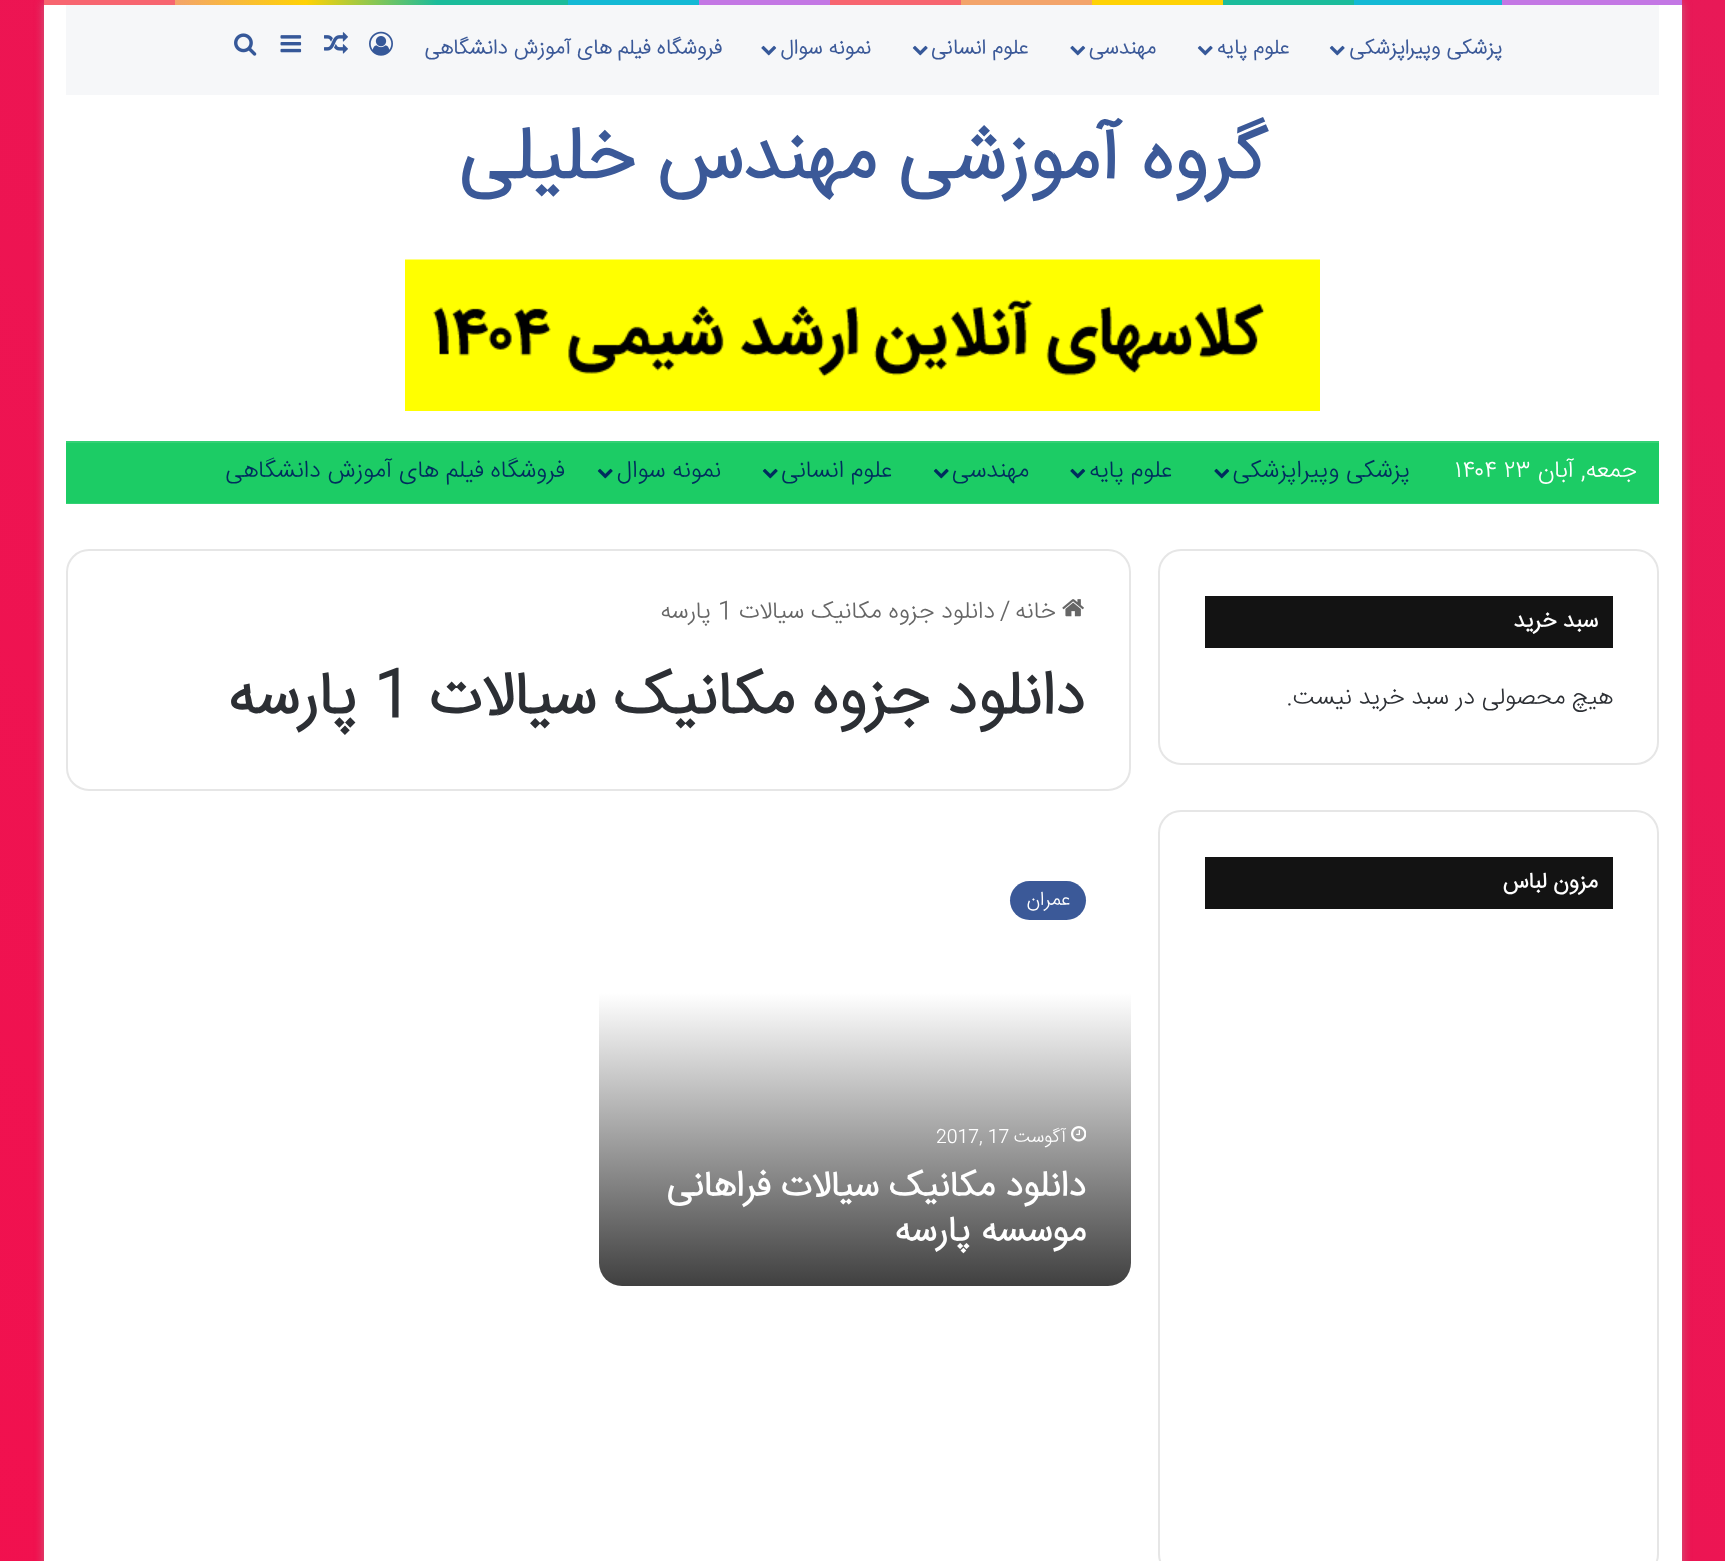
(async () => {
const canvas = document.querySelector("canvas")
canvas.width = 1725
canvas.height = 1561
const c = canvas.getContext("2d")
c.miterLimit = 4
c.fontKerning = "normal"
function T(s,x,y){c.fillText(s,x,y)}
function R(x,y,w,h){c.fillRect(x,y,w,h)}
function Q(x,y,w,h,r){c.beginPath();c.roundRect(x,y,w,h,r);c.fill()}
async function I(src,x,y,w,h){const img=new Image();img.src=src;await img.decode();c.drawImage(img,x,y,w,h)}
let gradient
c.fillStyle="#fff"
R(0,0,1725,1561)
gradient = c.createLinearGradient(-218,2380,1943,218)
gradient.addColorStop(0,"#f40e4c")
gradient.addColorStop(1,"#e81957")
c.fillStyle = gradient
R(0,0,1725,1561)
c.fillStyle="#ababab80"
c.filter="blur(5px)"
c.beginPath()
c.rect(44,2,1638,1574)
c.fill()
c.filter="none"
c.fillStyle="#fff"
R(44,5,1638,1556)
gradient = c.createLinearGradient(44,2.3,1682,2.2)
gradient.addColorStop(0,"#f76570")
gradient.addColorStop(.08,"#f76570")
gradient.addColorStop(.08,"#f3a46b")
gradient.addColorStop(.16,"#ffd205")
gradient.addColorStop(.24,"#1bbc9b")
gradient.addColorStop(.32,"#1bbc9b")
gradient.addColorStop(.32,"#14b9d5")
gradient.addColorStop(.4,"#14b9d5")
gradient.addColorStop(.4,"#c377e4")
gradient.addColorStop(.48,"#c377e4")
gradient.addColorStop(.48,"#f76570")
gradient.addColorStop(.56,"#f76570")
gradient.addColorStop(.56,"#f3a46b")
gradient.addColorStop(.64,"#f3a46b")
gradient.addColorStop(.64,"#ffd205")
gradient.addColorStop(.72,"#ffd205")
gradient.addColorStop(.72,"#1bbc9b")
gradient.addColorStop(.8,"#1bbc9b")
gradient.addColorStop(.8,"#14b9d5")
gradient.addColorStop(.89,"#14b9d5")
gradient.addColorStop(.89,"#c377e4")
gradient.addColorStop(1,"#c377e4")
c.fillStyle = gradient
R(44,0,1638,5)
c.fillStyle="#f6f7f9"
R(66,5,1593,90)
c.direction="rtl"
c.font="bold 21px 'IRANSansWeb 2'"
c.fillStyle="#3b5998"
T("پزشکی وپیراپزشکی",1502,54)
await I("1.png",1329,45,16,11)
T("علوم پایه",1289,54)
await I("1.png",1197,45,16,11)
T("مهندسی",1156,54)
await I("2.png",1070,45,16,11)
T("علوم انسانی",1028,54)
await I("1.png",912,45,16,11)
T("نمونه سوال",871,54)
await I("2.png",761,45,16,11)
T("فروشگاه فیلم های آموزش دانشگاهی",722,54)
await I("3.png",369,31,24,25)
await I("4.png",324,32,24,22)
await I("5.png",280,35,22,18)
await I("6.png",234,33,23,23)
c.font="bold 75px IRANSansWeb"
T("گروه آموزشی مهندس خلیلی",1266,179)
await I("7.png",405,259,915,152)
c.fillStyle="#1ccc65"
R(66,443,1593,60)
c.fillStyle="#33d174"
R(66,503,1593,1)
R(66,441,1593,2)
c.font="300 24px IRANSansWeb"
c.fillStyle="#fff"
T("جمعه, آبان",1637,477)
c.direction="ltr"
T("۱۴۰۴ ۲۳",1455,477)
c.direction="rtl"
c.fillStyle="#002c5e"
T("پزشکی وپیراپزشکی",1410,477)
await I("8.png",1214,468,16,11)
T("علوم پایه",1172,477)
await I("8.png",1070,468,16,11)
T("مهندسی",1029,477)
await I("9.png",933,468,16,11)
T("علوم انسانی",892,477)
await I("9.png",762,468,16,11)
T("نمونه سوال",721,477)
await I("9.png",597,468,16,11)
T("فروشگاه فیلم های آموزش دانشگاهی",565,477)
c.beginPath()
c.roundRect(1159,550,499,214,22)
c.strokeStyle="#e6e6e6"
c.lineWidth=2
c.stroke()
c.fillStyle="#131313"
R(1205,596,408,52)
c.font="bold 22.5px IRANSansWeb"
c.fillStyle="#fff"
T("سبد خرید",1598,627)
c.font="300 24px IRANSansWeb"
c.fillStyle="#2c2f34"
T("هیچ محصولی در سبد خرید نیست.",1613,704)
c.beginPath()
c.roundRect(1159,811,499,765,22)
c.stroke()
c.fillStyle="#131313"
R(1205,857,408,52)
c.font="bold 22.5px IRANSansWeb"
c.fillStyle="#fff"
T("مزون لباس",1598,888)
c.beginPath()
c.roundRect(67,550,1063,240,22)
c.stroke()
await I("10.png",1062,599,22,18)
c.font="300 24px IRANSansWeb"
c.fillStyle="#666"
T("خانه",1056,618)
c.direction="ltr"
T("/",1000,618)
c.direction="rtl"
T("دانلود جزوه مکانیک سیالات",995,618)
c.direction="ltr"
T("1",718,618)
c.direction="rtl"
T("پارسه",711,618)
c.font="bold 61.5px IRANSansWeb"
c.fillStyle="#2c2f34"
T("دانلود جزوه مکانیک سیالات",1085,714)
c.direction="ltr"
T("1",374,714)
c.direction="rtl"
T("پارسه",357,714)
c.fillStyle="#3b5998"
Q(1010,881,76,39,19.5)
c.font="300 19.5px IRANSansWeb"
c.fillStyle="#fff"
T("عمران",1070,905)
gradient = c.createLinearGradient(865,993,865,1286)
gradient.addColorStop(0,"#fff")
gradient.addColorStop(1,"#404040")
c.fillStyle = gradient
c.beginPath()
c.roundRect(599,993,532,293,[0,0,23,23])
c.fill()
await I("11.png",1071,1126,15,16)
c.font="300 18px IRANSansWeb"
c.fillStyle="#fff"
T("آگوست",1066,1142)
c.direction="ltr"
T("2017, 17",936,1142)
c.direction="rtl"
c.font="bold 36px IRANSansWeb"
T("دانلود مکانیک سیالات فراهانی",1086,1196)
T("موسسه پارسه",1086,1241)
})()
